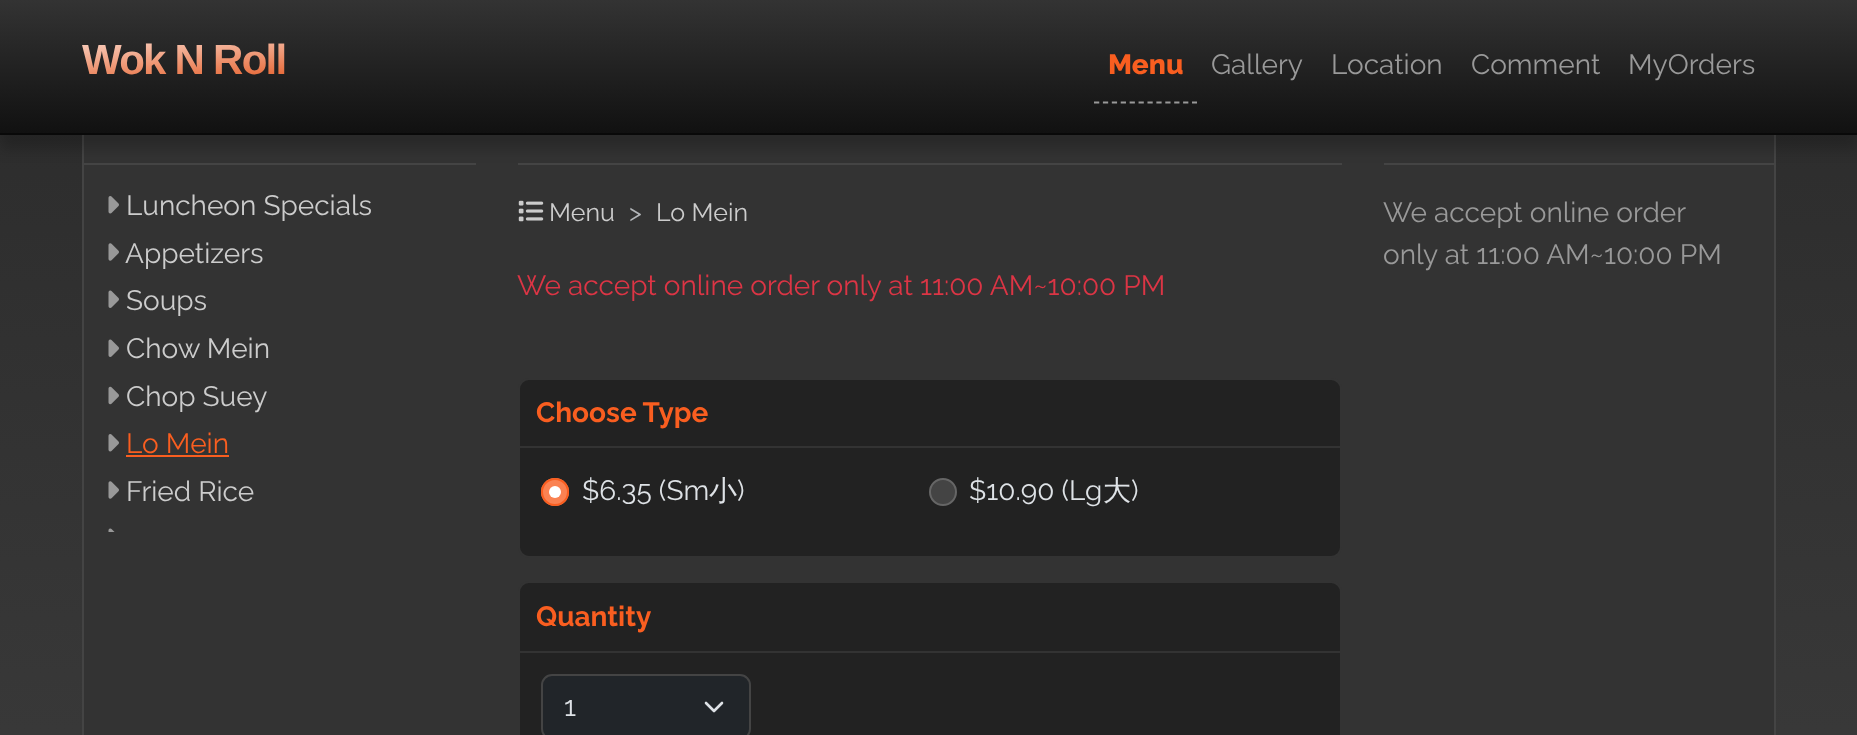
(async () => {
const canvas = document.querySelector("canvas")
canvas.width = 1857
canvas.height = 735
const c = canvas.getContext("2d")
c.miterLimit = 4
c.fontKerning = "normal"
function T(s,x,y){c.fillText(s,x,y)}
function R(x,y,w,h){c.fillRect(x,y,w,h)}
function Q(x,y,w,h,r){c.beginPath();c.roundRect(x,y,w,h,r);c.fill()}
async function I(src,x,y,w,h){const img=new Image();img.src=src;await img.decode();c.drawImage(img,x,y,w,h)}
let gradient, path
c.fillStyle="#fff"
R(0,0,1857,735)
gradient = c.createLinearGradient(929,-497,929,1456)
gradient.addColorStop(0,"#222")
gradient.addColorStop(1,"#454545")
c.fillStyle = gradient
R(0,135,1857,600)
c.fillStyle="#333"
R(84,135,1690,600)
c.strokeStyle="#444"
c.lineWidth=2
c.strokeRect(83,66,1692,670)
c.fillStyle="#444"
R(84,163,392,2)
R(518,163,824,2)
R(1384,163,391,2)
c.fillStyle="#00000033"
c.filter="blur(7px)"
c.beginPath()
c.rect(0,14,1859,135)
c.fill()
c.filter="none"
gradient = c.createLinearGradient(929,0,929,133)
gradient.addColorStop(0,"#333")
gradient.addColorStop(1,"#111")
c.fillStyle = gradient
R(0,0,1857,133)
c.fillStyle="#090909"
R(0,133,1857,2)
c.letterSpacing="-1.75px"
c.font="bold 42px Liberation Sans"
gradient = c.createLinearGradient(179,5.6,189,127)
gradient.addColorStop(.1,"#feede7")
gradient.addColorStop(.8,"#e04406")
c.fillStyle = gradient
T("Wok N Roll",82,74)
path = new Path2D("M1094 102.5h103")
c.strokeStyle="#999"
c.lineWidth=1.8
c.setLineDash([5.25,3.66])
c.stroke(path)
c.letterSpacing="0px"
c.font="800 28px Raleway"
c.fillStyle="#f95e20"
T("Menu",1108,74)
c.font="28px Raleway"
c.fillStyle="#999"
T("Gallery",1211,74)
T("Location",1331,74)
T("Comment",1471,74)
T("MyOrders",1628,74)
await I("1.png",108,196,11,18)
c.fillStyle="#ccc"
T("Luncheon Specials",126,215)
await I("2.png",108,243,11,18)
T("Appetizers",125,263)
await I("3.png",108,290,11,18)
T("Soups",126,310)
await I("3.png",108,339,11,18)
T("Chow Mein",126,358)
await I("4.png",108,386,11,19)
T("Chop Suey",126,406)
await I("1.png",108,434,11,18)
c.fillStyle="#f95e20"
T("Lo Mein",126,453)
R(126,455,103,2)
await I("2.png",108,481,11,18)
c.fillStyle="#ccc"
T("Fried Rice",126,501)
await I("5.png",108,528,7,4)
await I("6.png",518,200,26,22)
c.font="25px Raleway"
T("Menu",549,221)
c.fillStyle="#b3b6b9"
T(">",629,221)
c.fillStyle="#ccc"
T("Lo Mein",656,221)
c.font="28px Raleway"
c.fillStyle="#dc3545"
T("We accept online order only at 11:00 AM~10:00 PM",517,295)
c.fillStyle="#222"
c.beginPath()
c.roundRect(519,379,822,178,10)
c.fill()
c.strokeStyle="#333"
c.lineWidth=2
c.setLineDash([])
c.stroke()
c.fillStyle="#333"
R(520,446,821,2)
c.font="bold 28px Raleway"
c.fillStyle="#f95e20"
T("Choose Type",536,422)
c.fillStyle="#fa8252"
c.beginPath()
c.arc(555,492,14,0,7)
c.fill()
c.fillStyle="#fff"
c.beginPath()
c.arc(555,492,6,0,7)
c.fill()
c.beginPath()
c.arc(555,492,13,0,7)
c.strokeStyle="#f95e20"
c.stroke()
c.font="28px Raleway"
c.fillStyle="#dee2e6"
T("$6.35 (Sm",582,500)
c.font="500 28px WenQuanYi Zen Hei"
T("小",709,500)
c.font="28px Raleway"
T(")",737,500)
c.fillStyle="#444"
c.beginPath()
c.arc(943,492,13,0,7)
c.fill()
c.strokeStyle="#666"
c.stroke()
c.fillStyle="#dee2e6"
T("$10.90 (Lg",969,500)
c.font="500 28px WenQuanYi Zen Hei"
T("大",1103,500)
c.font="28px Raleway"
T(")",1131,500)
c.fillStyle="#222"
c.beginPath()
c.roundRect(519,582,822,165,10)
c.fill()
c.strokeStyle="#333"
c.stroke()
c.fillStyle="#333"
R(520,651,821,2)
c.font="bold 28px Raleway"
c.fillStyle="#f95e20"
T("Quantity",536,626)
c.fillStyle="#212529"
Q(541,674,210,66,11)
path = new Path2D("M706 703l8 8l8-8")
c.strokeStyle="#dee2e6"
c.lineWidth=2.6
c.lineCap="round"
c.lineJoin="round"
c.stroke(path)
c.beginPath()
c.roundRect(542,675,208,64,10)
c.strokeStyle="#444"
c.lineWidth=2
c.lineJoin="miter"
c.stroke()
c.font="28px Raleway"
c.fillStyle="#dee2e6"
T("1",564,716)
c.fillStyle="#999"
T("We accept online order",1383,222)
T("only at 11:00 AM~10:00 PM",1383,264)
})()
